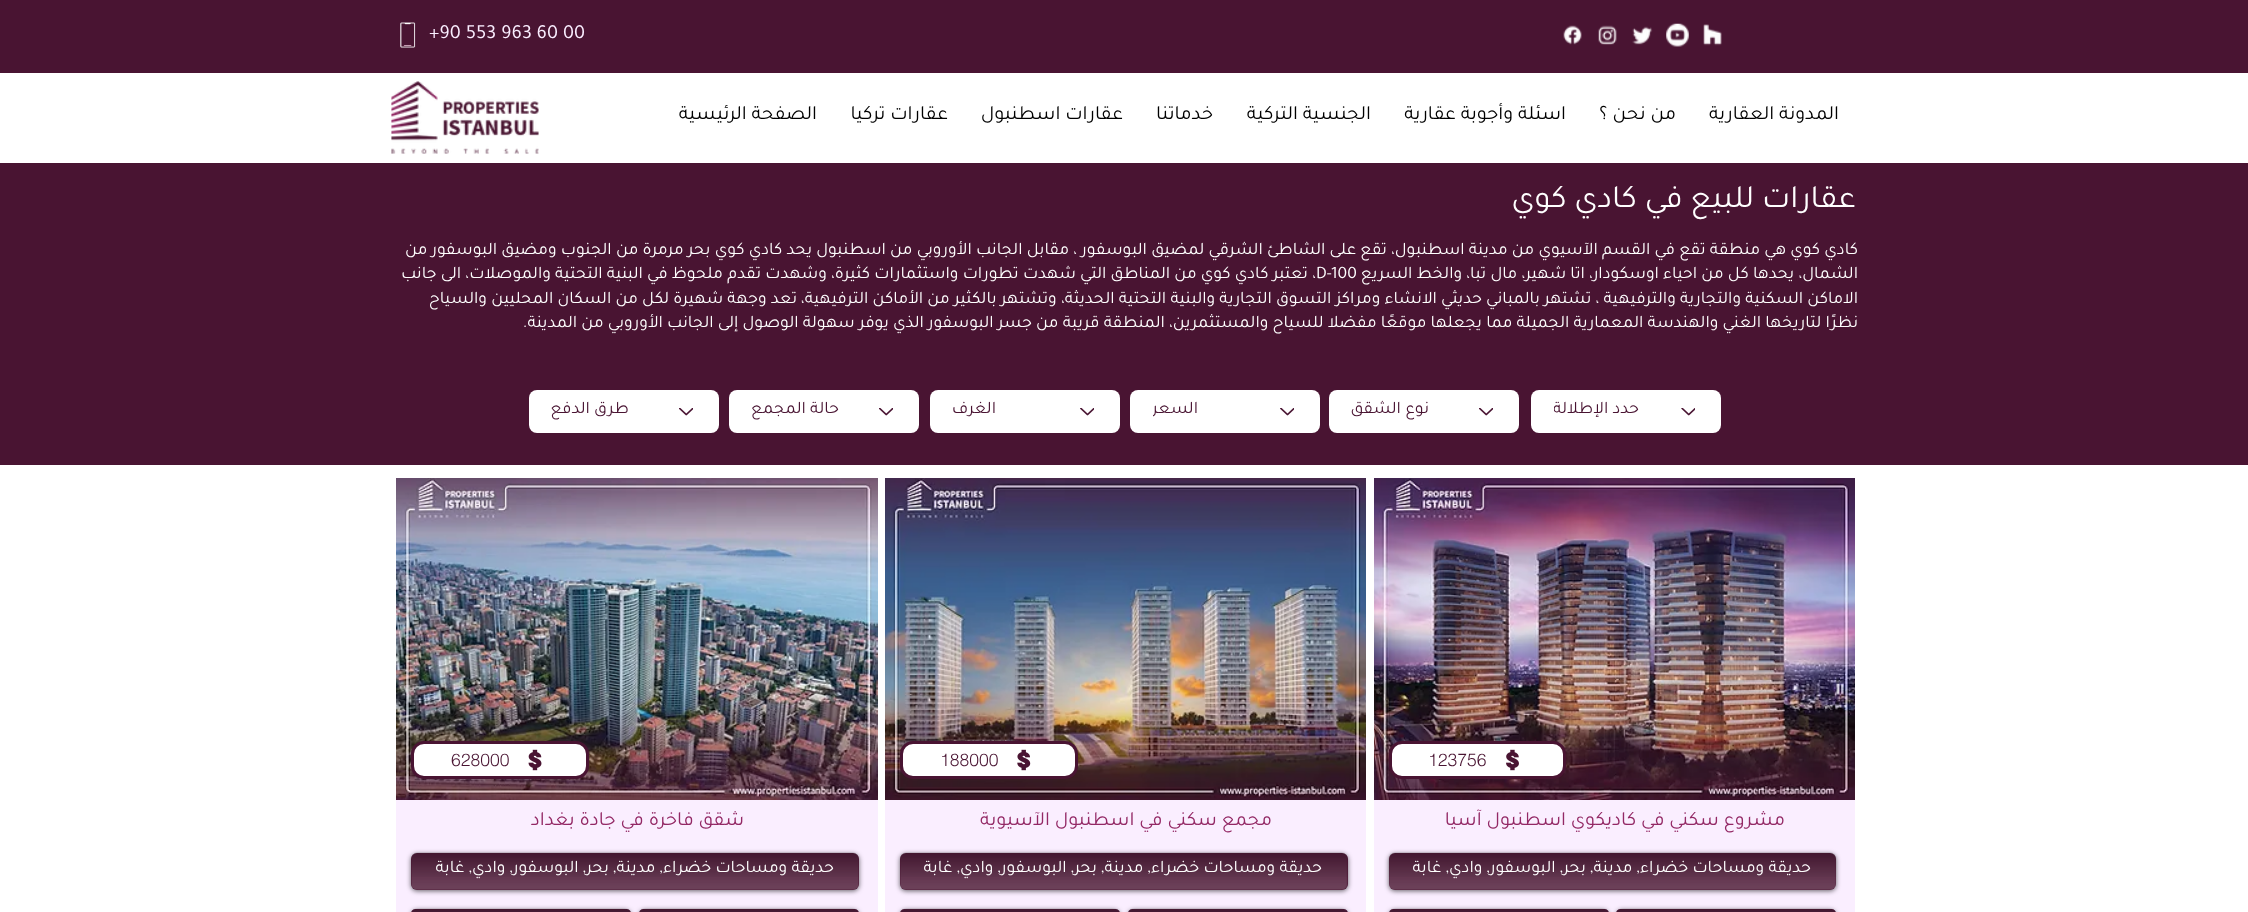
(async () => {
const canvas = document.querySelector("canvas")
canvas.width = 2248
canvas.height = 912
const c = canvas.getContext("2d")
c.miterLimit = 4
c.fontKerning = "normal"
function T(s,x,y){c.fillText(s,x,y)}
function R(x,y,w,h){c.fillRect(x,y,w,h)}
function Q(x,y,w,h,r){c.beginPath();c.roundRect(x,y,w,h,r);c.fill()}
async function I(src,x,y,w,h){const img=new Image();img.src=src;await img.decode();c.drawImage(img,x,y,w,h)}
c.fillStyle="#fff"
R(0,0,2248,912)
c.fillStyle="#491432"
R(0,0,2248,73)
await I("1.png",1703,24,19,22)
await I("2.png",1666,23,23,24)
await I("3.png",1632,26,21,19)
await I("4.png",1598,25,19,20)
await I("5.png",1563,25,19,20)
c.font="20px Tajawal"
c.fillStyle="#faeeff"
T("+90 553 963 60 00",429,38)
await I("6.png",400,22,16,26)
c.direction="rtl"
c.fillStyle="#000"
T("المدونة العقارية",1839,119)
T("من نحن ؟",1676,119)
T("اسئلة وأجوبة عقارية",1566,119)
T("الجنسية التركية",1371,119)
T("خدماتنا",1213,119)
T("عقارات اسطنبول",1123,119)
T("عقارات تركيا",948,119)
T("الصفحة الرئيسية",817,119)
await I("7.png",391,81,148,73)
c.fillStyle="#491432"
R(0,163,2248,302)
c.font="32.5px Tajawal"
c.fillStyle="#fff"
T("عقارات للبيع في كادي كوي",1856,207)
c.font="17.5px Tajawal"
T("كادي كوي هي منطقة تقع في القسم الآسيوي من مدينة اسطنبول، تقع على الشاطئ الشرقي لمضيق البوسفور ، مقابل الجانب الأوروبي من اسطنبول يحد كادي كوي بحر مرمرة من الجنوب ومضيق البوسفور من",1858,254)
T("الشمال، يحدها كل من احياء اوسكودار، اتا شهير، مال تبا، والخط السريع",1858,278)
c.direction="ltr"
T("D-100",1316,278)
c.direction="rtl"
T("، تعتبر كادي كوي من المناطق التي شهدت تطورات واستثمارات كثيرة، وشهدت تقدم ملحوظ في البنية التحتية والموصلات، الى جانب",1316,278)
T("الاماكن السكنية والتجارية والترفيهية ، تشتهر بالمباني حديثي الانشاء ومراكز التسوق التجارية والبنية التحتية الحديثة، وتشتهر بالكثير من الأماكن الترفيهية،",1858,303)
T("تعد وجهة شهيرة لكل من السكان المحليين والسياح",797,303)
T("نظرًا لتاريخها الغني والهندسة المعمارية الجميلة مما يجعلها موقعًا مفضلا للسياح والمستثمرين، المنطقة قريبة من جسر البوسفور الذي يوفر سهولة الوصول إلى الجانب الأوروبي من المدينة.",1858,327)
Q(1531,390,190,43,8)
await I("8.png",1681,408,14,8)
c.save()
c.beginPath()
c.rect(1554,399,107,25)
c.clip()
c.fillStyle="#491432"
T("حدد الإطلالة",1639,413)
c.restore()
Q(1329,390,190,43,8)
await I("9.png",1479,408,14,8)
c.fillStyle="#491432"
T("نوع الشقق",1429,413)
c.fillStyle="#fff"
Q(1130,390,190,43,8)
await I("10.png",1280,408,14,8)
c.save()
c.beginPath()
c.rect(1153,399,107,25)
c.clip()
c.fillStyle="#491432"
T("السعر",1198,413)
c.restore()
Q(930,390,190,43,8)
await I("10.png",1080,408,14,8)
c.fillStyle="#491432"
T("الغرف",996,413)
c.fillStyle="#fff"
Q(729,390,190,43,8)
await I("9.png",879,408,14,8)
c.fillStyle="#491432"
T("حالة المجمع",839,413)
c.fillStyle="#fff"
Q(529,390,190,43,8)
await I("9.png",679,408,14,8)
c.fillStyle="#491432"
T("طرق الدفع",629,413)
await I("11.png",1374,478,481,322)
c.fillStyle="#fff"
c.beginPath()
c.roundRect(1390.5,742.5,174,35,11.5)
c.fill()
c.strokeStyle="#491432"
c.lineWidth=3
c.stroke()
await I("12.png",1506,749,13,22)
c.direction="ltr"
c.font="300 17.5px helvetica"
c.fillStyle="#491432"
T("123756",1428,766)
c.fillStyle="#faeeff"
R(1374,800,481,112)
c.direction="rtl"
c.font="20px Tajawal"
c.fillStyle="#932865"
T("مشروع سكني في كاديكوي اسطنبول آسيا",1785,825)
c.fillStyle="#00000099"
c.filter="blur(2.5px)"
c.beginPath()
c.roundRect(1389,854,447,37,6)
c.fill()
c.filter="none"
c.fillStyle="#491432"
Q(1389,853,447,37,6)
await I("13.png",1388,852,449,25)
await I("14.png",1389,853,447,37)
c.font="17.5px Tajawal"
c.fillStyle="#fff"
T("حديقة ومساحات خضراء, مدينة, بحر, البوسفور, وادي, غابة",1811,872)
c.fillStyle="#00000099"
c.filter="blur(2.5px)"
c.beginPath()
c.roundRect(1389,910,220,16,6)
c.fill()
c.filter="none"
c.fillStyle="#491432"
Q(1389,909,220,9,6)
await I("17.png",1389,908,219,4)
await I("18.png",1390,909,218,3)
c.fillStyle="#00000099"
c.filter="blur(2.5px)"
c.beginPath()
c.roundRect(1616,910,220,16,6)
c.fill()
c.filter="none"
c.fillStyle="#491432"
Q(1616,909,220,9,6)
await I("15.png",1617,908,219,4)
await I("16.png",1617,909,218,3)
await I("19.png",885,478,481,322)
c.fillStyle="#fff"
c.beginPath()
c.roundRect(901.5,742.5,175,35,11.5)
c.fill()
c.stroke()
await I("20.png",1017,749,14,22)
c.direction="ltr"
c.font="300 17.5px helvetica"
c.fillStyle="#491432"
T("188000",940,766)
c.fillStyle="#faeeff"
R(885,800,481,112)
c.direction="rtl"
c.font="20px Tajawal"
c.fillStyle="#932865"
T("مجمع سكني في اسطنبول الآسيوية",1272,825)
c.fillStyle="#00000099"
c.filter="blur(2.5px)"
c.beginPath()
c.roundRect(900,854,448,37,6)
c.fill()
c.filter="none"
c.fillStyle="#491432"
Q(900,853,448,37,6)
await I("21.png",900,852,448,25)
await I("22.png",900,853,448,37)
c.font="17.5px Tajawal"
c.fillStyle="#fff"
T("حديقة ومساحات خضراء, مدينة, بحر, البوسفور, وادي, غابة",1322,872)
c.fillStyle="#00000099"
c.filter="blur(2.5px)"
c.beginPath()
c.roundRect(900,910,220,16,6)
c.fill()
c.filter="none"
c.fillStyle="#491432"
Q(900,909,220,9,6)
c.fillStyle="#00000099"
c.filter="blur(2.5px)"
c.beginPath()
c.roundRect(1128,910,220,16,6)
c.fill()
c.filter="none"
c.fillStyle="#491432"
Q(1128,909,220,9,6)
await I("23.png",1128,908,219,4)
c.fillStyle="#ffffff0a"
R(1129,909,217,3)
await I("24.png",900,908,219,4)
R(901,909,218,3)
await I("25.png",396,478,482,322)
c.fillStyle="#fff"
c.beginPath()
c.roundRect(412.5,742.5,175,35,11.5)
c.fill()
c.stroke()
await I("26.png",528,749,14,22)
c.direction="ltr"
c.font="300 17.5px helvetica"
c.fillStyle="#491432"
T("628000",451,766)
c.fillStyle="#faeeff"
R(396,800,482,112)
c.direction="rtl"
c.font="20px Tajawal"
c.fillStyle="#932865"
T("شقق فاخرة في جادة بغداد",744,825)
c.fillStyle="#00000099"
c.filter="blur(2.5px)"
c.beginPath()
c.roundRect(411,854,448,37,6)
c.fill()
c.filter="none"
c.fillStyle="#491432"
Q(411,853,448,37,6)
await I("27.png",411,852,448,25)
await I("28.png",411,853,448,37)
c.font="17.5px Tajawal"
c.fillStyle="#fff"
T("حديقة ومساحات خضراء, مدينة, بحر, البوسفور, وادي, غابة",834,872)
c.fillStyle="#00000099"
c.filter="blur(2.5px)"
c.beginPath()
c.roundRect(411,910,220,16,6)
c.fill()
c.filter="none"
c.fillStyle="#491432"
Q(411,909,220,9,6)
await I("31.png",412,908,219,4)
c.fillStyle="#00000099"
c.filter="blur(2.5px)"
c.beginPath()
c.roundRect(639,910,220,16,6)
c.fill()
c.filter="none"
c.fillStyle="#491432"
Q(639,909,220,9,6)
await I("29.png",639,908,219,4)
await I("30.png",640,909,218,3)
await I("32.png",412,909,218,3)
})()
